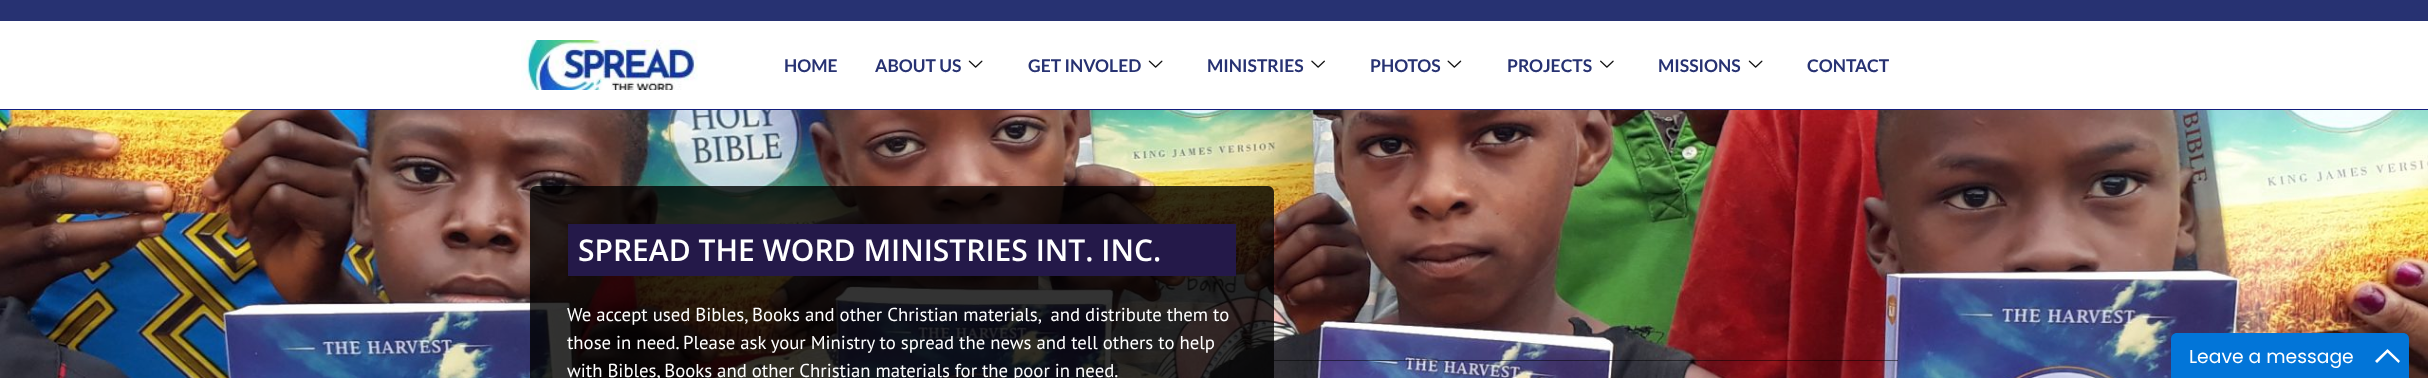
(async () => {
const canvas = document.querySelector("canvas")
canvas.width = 2428
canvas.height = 378
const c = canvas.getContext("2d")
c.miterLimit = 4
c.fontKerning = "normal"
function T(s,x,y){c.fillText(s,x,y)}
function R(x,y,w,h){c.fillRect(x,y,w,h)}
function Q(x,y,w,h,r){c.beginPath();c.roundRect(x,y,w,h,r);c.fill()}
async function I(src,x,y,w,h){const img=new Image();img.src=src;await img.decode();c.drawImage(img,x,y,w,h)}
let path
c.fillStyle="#fff"
R(0,0,2428,378)
c.fillStyle="#273272"
R(0,0,2428,21)
c.fillStyle="#131e7e"
R(0,109,2428,1)
await I("1.png",521,40,177,50)
c.font="bold 17.5px Lato"
c.fillStyle="#273272"
T("HOME",784,72)
T("ABOUT US",875,72)
await I("2.png",968,60,15,8)
T("GET INVOLED",1028,72)
await I("2.png",1148,60,15,8)
T("MINISTRIES",1207,72)
await I("3.png",1311,60,14,8)
T("PHOTOS",1370,72)
await I("4.png",1447,60,15,8)
T("PROJECTS",1507,72)
await I("5.png",1600,60,14,8)
T("MISSIONS",1658,72)
await I("2.png",1748,60,15,8)
T("CONTACT",1807,72)
await I("6.png",0,110,2428,268)
c.fillStyle="#000000cc"
Q(530,186,744,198,6)
c.fillStyle="#241949"
R(568,224,668,52)
c.font="600 30px Open Sans"
c.fillStyle="#fff"
T("SPREAD THE WORD MINISTRIES INT. INC.",578,261)
c.font="18.75px PT Sans"
T("We accept used Bibles, Books and other Christian materials,  and distribute them to",567,321)
T("those in need. Please ask your Ministry to spread the news and tell others to help",567,349)
T("with Bibles, Books and other Christian materials for the poor in need.",567,377)
c.fillStyle="#00000080"
R(1274,360,624,1)
c.fillStyle="#0275d8"
path = new Path2D("M2177 333h226c3.5 0 6 2.5 6 6v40h-238v-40c0-3.5 2.5-6 6-6z")
c.fill(path)
c.font="18.75px Poppins"
c.fillStyle="#fff"
T("Leave a message",2189,363)
path = new Path2D("M2387.5 349l12.5 12l-1.5 2l-11-10.5l-10.5 10.5l-2-2z")
c.fill(path)
})()
